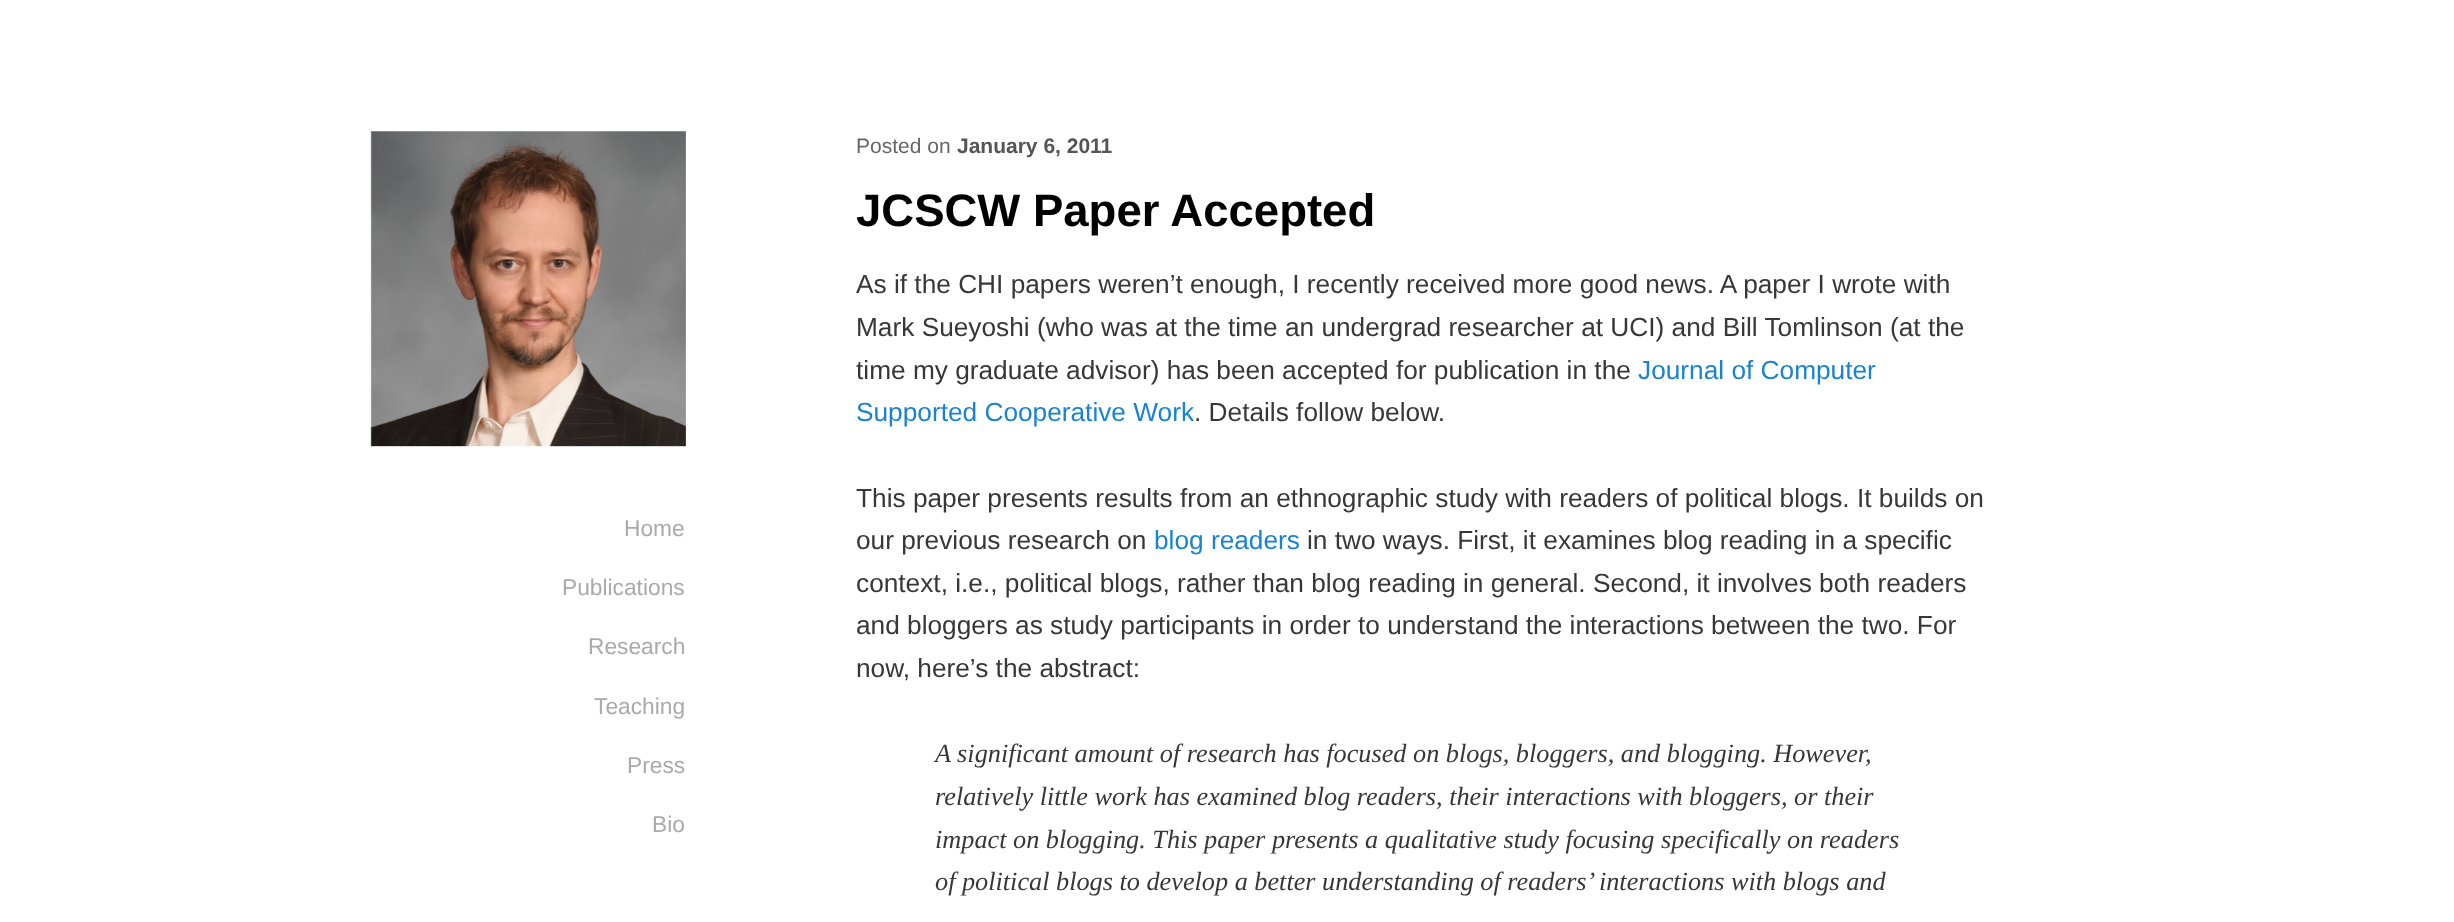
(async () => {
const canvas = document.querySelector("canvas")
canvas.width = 2454
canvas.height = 922
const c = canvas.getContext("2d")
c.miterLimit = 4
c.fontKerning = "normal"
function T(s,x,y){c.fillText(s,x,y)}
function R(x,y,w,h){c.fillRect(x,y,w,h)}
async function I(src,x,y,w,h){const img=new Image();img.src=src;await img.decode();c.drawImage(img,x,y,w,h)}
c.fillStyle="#fff"
R(0,0,2454,922)
await I("1.png",370,131,316,316)
c.font="22.75px Liberation Sans"
c.fillStyle="#aaa"
T("Home",624,536)
T("Publications",562,595)
T("Research",588,654)
T("Teaching",594,714)
T("Press",627,773)
T("Bio",652,832)
c.font="21px Liberation Sans"
c.fillStyle="#666"
T("Posted on",856,153)
c.font="bold 21px Liberation Sans"
c.fillStyle="#555"
T("January 6, 2011",957,153)
c.font="bold 45.5px Liberation Sans"
c.fillStyle="#000"
T("JCSCW Paper Accepted",856,226)
c.font="26.25px Liberation Sans"
c.fillStyle="#373737"
T("As if the CHI papers weren’t enough, I recently received more good news. A paper I wrote with",856,293)
T("Mark Sueyoshi (who was at the time an undergrad researcher at UCI) and Bill Tomlinson (at the",856,336)
T("time my graduate advisor) has been accepted for publication in the",856,379)
c.fillStyle="#1982d1"
T("Journal of Computer",1638,379)
T("Supported Cooperative Work",856,421)
c.fillStyle="#373737"
T(". Details follow below.",1194,421)
T("This paper presents results from an ethnographic study with readers of political blogs. It builds on",856,507)
T("our previous research on",856,549)
c.fillStyle="#1982d1"
T("blog readers",1154,549)
c.fillStyle="#373737"
T("in two ways. First, it examines blog reading in a specific",1307,549)
T("context, i.e., political blogs, rather than blog reading in general. Second, it involves both readers",856,592)
T("and bloggers as study participants in order to understand the interactions between the two. For",856,634)
T("now, here’s the abstract:",856,677)
c.font="italic 26.25px Liberation Serif"
T("A significant amount of research has focused on blogs, bloggers, and blogging. However,",935,762)
T("relatively little work has examined blog readers, their interactions with bloggers, or their",935,805)
T("impact on blogging. This paper presents a qualitative study focusing specifically on readers",935,848)
T("of political blogs to develop a better understanding of readers’ interactions with blogs and",935,890)
})()
